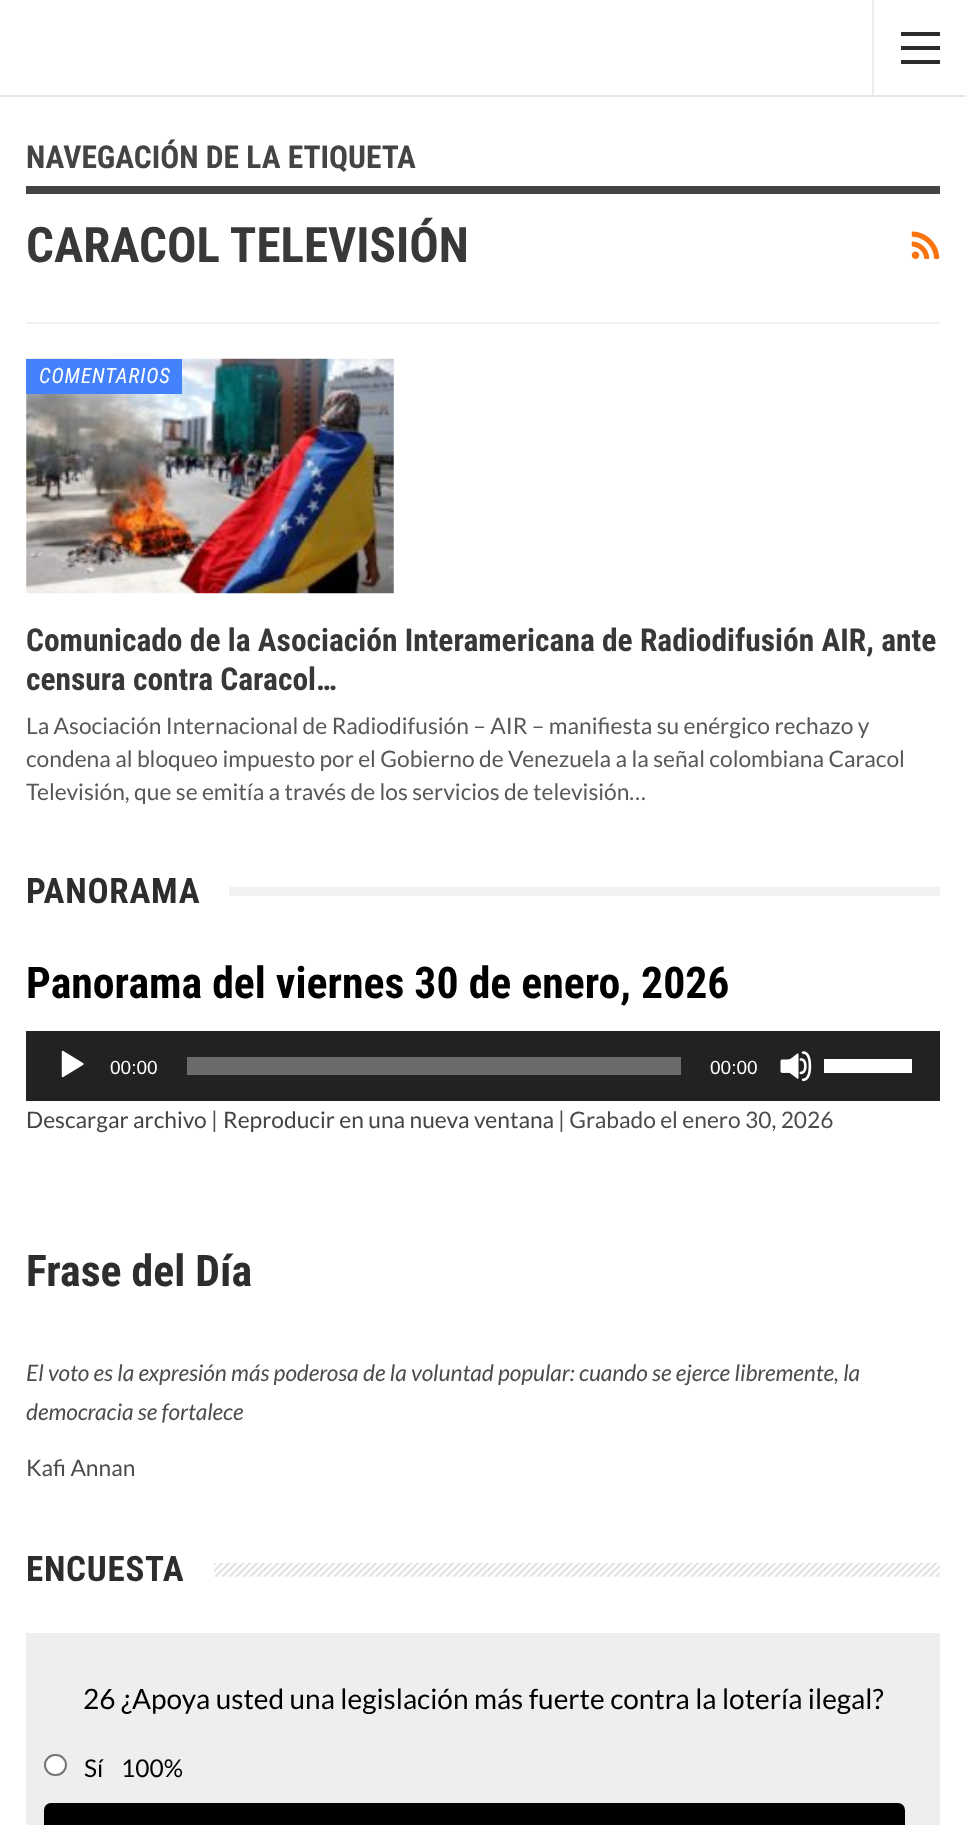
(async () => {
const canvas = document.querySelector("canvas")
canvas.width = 965
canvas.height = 1825
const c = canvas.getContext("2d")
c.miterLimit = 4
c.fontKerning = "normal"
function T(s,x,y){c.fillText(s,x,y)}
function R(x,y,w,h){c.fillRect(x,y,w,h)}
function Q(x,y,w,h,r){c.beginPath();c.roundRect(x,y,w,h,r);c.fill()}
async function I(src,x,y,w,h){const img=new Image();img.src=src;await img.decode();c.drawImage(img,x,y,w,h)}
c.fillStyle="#fff"
R(0,0,965,1825)
c.fillStyle="#e5e5e5"
R(0,95,965,2)
c.fillStyle="#ededed"
R(872,0,2,95)
c.fillStyle="#2c2c2c"
R(901,46,39,4)
R(901,32,39,4)
R(901,60,39,4)
c.fillStyle="#f0f0f0"
R(26,322,914,2)
c.font="bold 31.5px Roboto Condensed"
c.fillStyle="#444"
T("NAVEGACIÓN DE LA ETIQUETA",26,168)
R(26,186,914,8)
c.font="bold 49px Roboto Condensed"
c.fillStyle="#383838"
T("CARACOL TELEVISIÓN",26,262)
await I("1.png",911,231,29,28)
await I("2.png",26,358,368,236)
c.fillStyle="#4481fc"
R(26,359,156,35)
c.letterSpacing="0.9px"
c.font="italic 21px Roboto Condensed"
c.fillStyle="#fff"
T("COMENTARIOS",39,383)
c.letterSpacing="0px"
c.font="bold 31.5px Roboto Condensed"
c.fillStyle="#383838"
T("Comunicado de la Asociación Interamericana de Radiodifusión AIR, ante",26,651)
T("censura contra Caracol…",26,690)
c.font="22.75px Lato"
c.fillStyle="#585858"
T("La Asociación Internacional de Radiodifusión – AIR – manifiesta su enérgico rechazo y",26,734)
T("condena al bloqueo impuesto por el Gobierno de Venezuela a la señal colombiana Caracol",26,767)
T("Televisión, que se emitía a través de los servicios de televisión…",26,800)
c.letterSpacing="0.75px"
c.font="bold 35px Roboto Condensed"
c.fillStyle="#2d2d2d"
T("PANORAMA",26,903)
c.fillStyle="#f2f2f2"
R(229,887,711,9)
c.letterSpacing="0px"
c.font="bold 43.75px Roboto Condensed"
c.fillStyle="#000"
T("Panorama del viernes 30 de enero, 2026",26,998)
c.fillStyle="#222"
R(26,1031,914,70)
await I("3.png",61,1050,23,28)
c.font="19px Liberation Sans"
c.fillStyle="#fff"
T("00:00",110,1074)
c.fillStyle="#6b6b6b"
R(187,1057,494,18)
c.fillStyle="#fff"
T("00:00",710,1074)
await I("4.png",780,1051,32,30)
R(824,1059,88,14)
c.font="22.75px Lato"
c.fillStyle="#444"
T("Descargar archivo",26,1128)
c.fillStyle="#4c4c4c"
T("|",211,1128)
c.fillStyle="#444"
T("Reproducir en una nueva ventana",223,1128)
c.fillStyle="#4c4c4c"
T("| Grabado el enero 30, 2026",558,1128)
c.font="bold 43.75px Roboto Condensed"
c.fillStyle="#2d2d2d"
T("Frase del Día",26,1286)
c.font="italic 22.75px Lato"
c.fillStyle="#4c4c4c"
T("El voto es la expresión más poderosa de la voluntad popular: cuando se ejerce libremente, la",26,1381)
T("democracia se fortalece",26,1420)
c.font="22.75px Lato"
T("Kafi Annan",26,1476)
c.letterSpacing="0.75px"
c.font="bold 35px Roboto Condensed"
c.fillStyle="#2d2d2d"
T("ENCUESTA",26,1581)
await I("5.png",214,1562,726,15)
c.fillStyle="#eee"
R(26,1633,914,192)
c.letterSpacing="0px"
c.font="28px Lato"
c.fillStyle="#000"
T("26 ¿Apoya usted una legislación más fuerte contra la lotería ilegal?",83,1709)
c.fillStyle="#fff"
c.beginPath()
c.roundRect(45,1755,21,20,10)
c.fill()
c.strokeStyle="#767676"
c.lineWidth=2
c.stroke()
c.font="24.5px Lato"
c.fillStyle="#000"
T("Sí",84,1777)
T("100%",121,1777)
Q(44,1803,861,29,7)
})()
